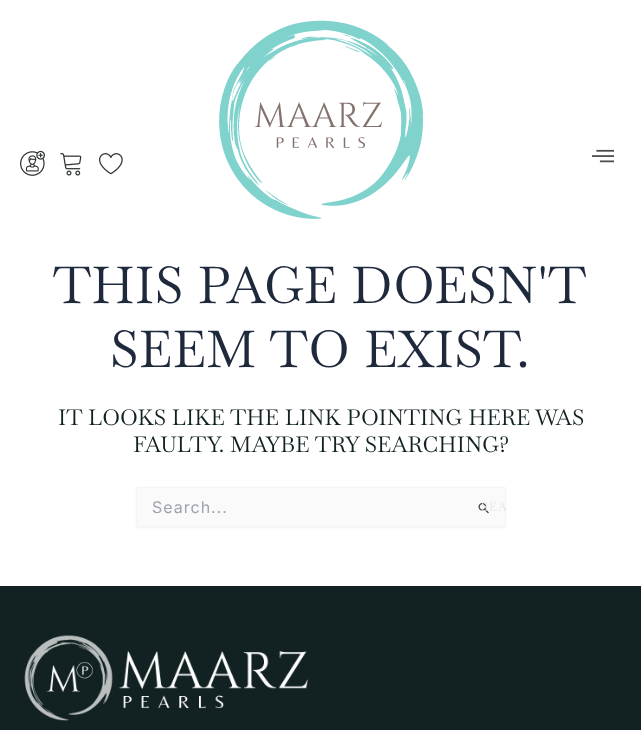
(async () => {
const canvas = document.querySelector("canvas")
canvas.width = 641
canvas.height = 730
const c = canvas.getContext("2d")
c.miterLimit = 4
c.fontKerning = "normal"
function T(s,x,y){c.fillText(s,x,y)}
function R(x,y,w,h){c.fillRect(x,y,w,h)}
async function I(src,x,y,w,h){const img=new Image();img.src=src;await img.decode();c.drawImage(img,x,y,w,h)}
c.fillStyle="#fff"
R(0,0,641,730)
await I("1.png",219,20,204,199)
await I("2.png",20,150,25,26)
await I("3.png",60,153,22,23)
await I("4.png",99,153,24,22)
await I("5.png",592,149,22,14)
c.letterSpacing="0.5px"
c.font="51px Baskervville"
c.fillStyle="#1e293b"
T("THIS PAGE DOESN'T",53,303)
T("SEEM TO EXIST.",110,367)
c.letterSpacing="0px"
c.font="21.9px Baskervville"
c.fillStyle="#122223"
T("IT LOOKS LIKE THE LINK POINTING HERE WAS",58,425)
T("FAULTY. MAYBE TRY SEARCHING?",133,452)
c.fillStyle="#0000000d"
c.filter="blur(1px)"
c.beginPath()
c.roundRect(136,488,370,40,2)
c.fill()
c.filter="none"
c.fillStyle="#fafafa"
c.beginPath()
c.roundRect(136.5,487.5,369,39,1.5)
c.fill()
c.strokeStyle="#f2f5f7"
c.stroke()
c.letterSpacing="1px"
c.font="16px Inter"
c.fillStyle="#9ca3af"
T("Search...",152,513)
await I("6.png",478,503,11,11)
c.font="500 12px Baskervville"
c.fillStyle="#e8e8e8"
T("SEA",481,511)
c.fillStyle="#122223"
R(0,586,641,144)
await I("7.png",24,635,284,86)
})()
